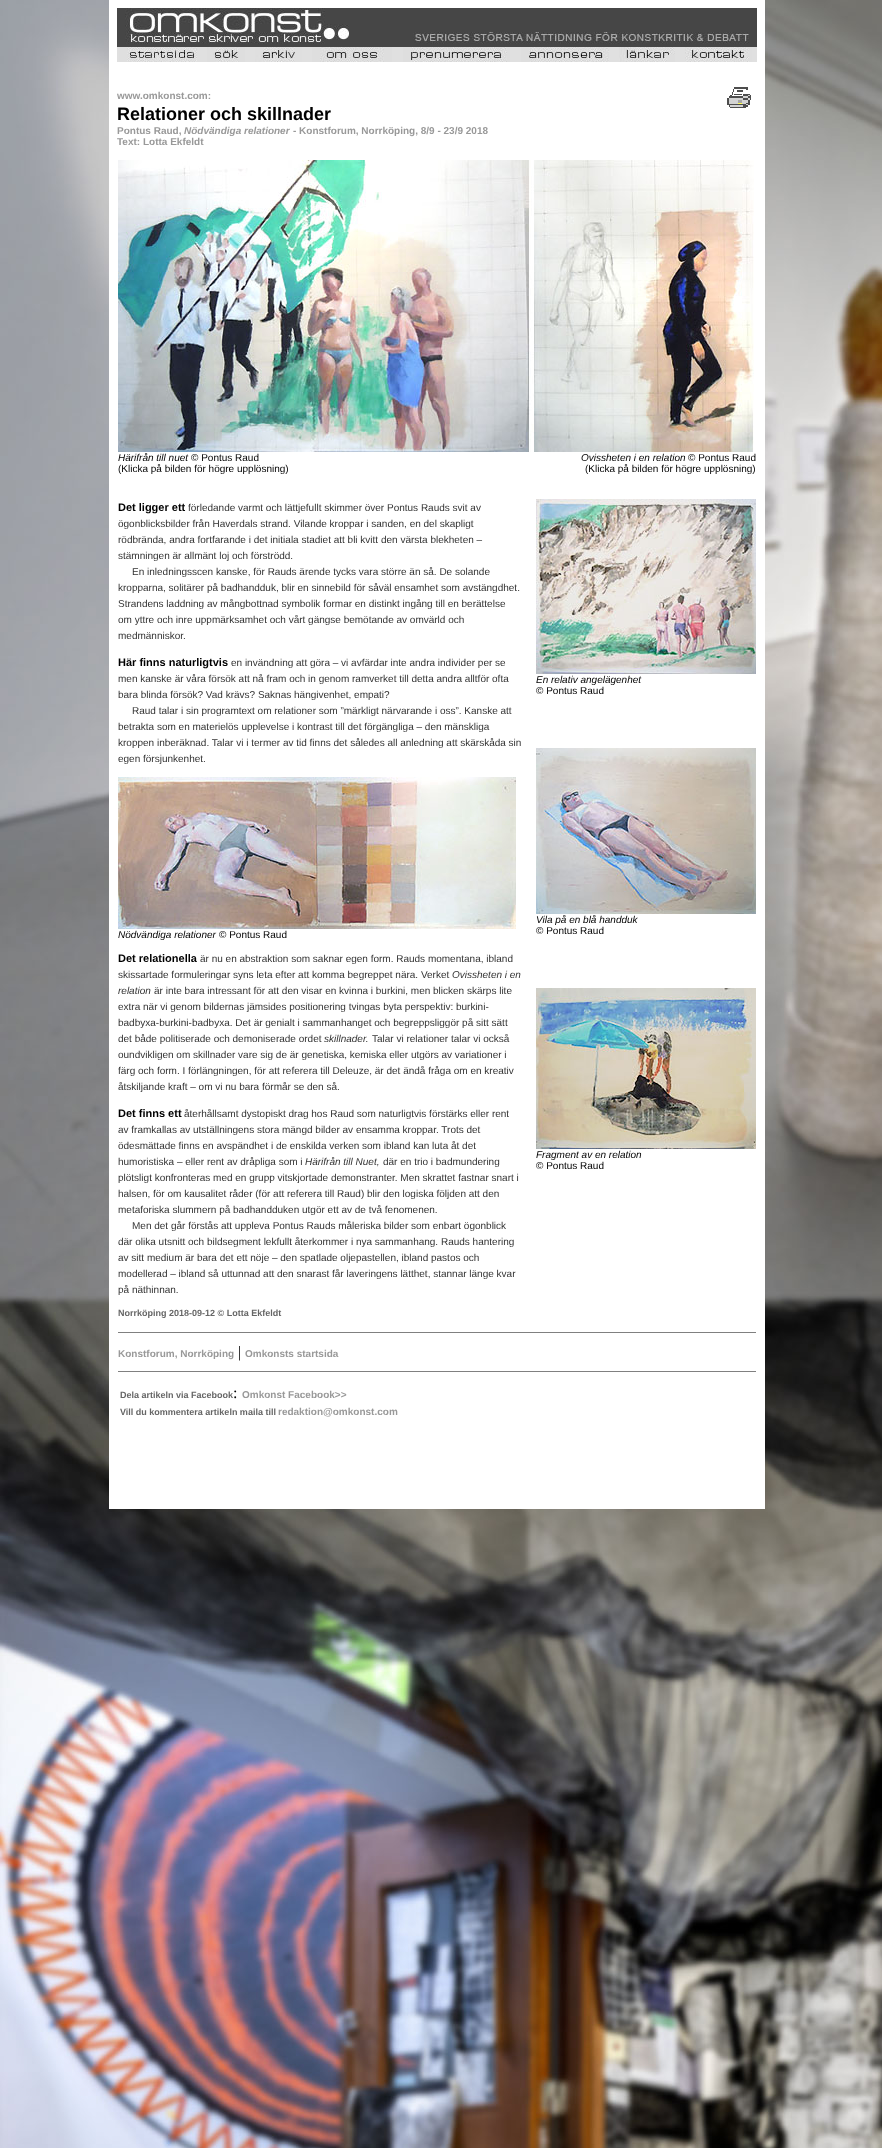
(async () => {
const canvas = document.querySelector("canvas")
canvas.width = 882
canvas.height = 2148
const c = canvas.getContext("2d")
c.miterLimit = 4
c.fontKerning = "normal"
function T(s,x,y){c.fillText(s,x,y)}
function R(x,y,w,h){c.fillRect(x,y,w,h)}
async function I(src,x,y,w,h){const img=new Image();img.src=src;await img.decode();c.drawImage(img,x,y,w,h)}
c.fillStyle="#fff"
R(0,0,882,2148)
await I("1.png",0,0,882,2148)
R(109,0,656,1509)
await I("2.png",117,8,640,36)
c.fillStyle="#464646"
R(117,44,640,3)
c.fillStyle="#e0e0e0"
R(117,47,2,15)
await I("3.png",119,47,78,15)
R(197,47,10,15)
await I("4.png",207,47,38,15)
R(245,47,10,15)
await I("5.png",255,47,47,15)
R(302,47,10,15)
await I("6.png",312,47,80,15)
R(392,47,11,15)
await I("7.png",403,47,107,15)
R(510,47,11,15)
await I("8.png",521,47,88,15)
R(609,47,10,15)
await I("9.png",619,47,56,15)
R(675,47,10,15)
await I("10.png",685,47,67,15)
R(752,47,5,15)
c.font="bold 10px Liberation Sans"
c.fillStyle="#999"
T("www.omkonst.com:",117,99)
c.font="bold 18px Liberation Sans"
c.fillStyle="#000"
T("Relationer och skillnader",117,120)
c.font="bold 10px Liberation Sans"
c.fillStyle="#999"
T("Pontus Raud,",117,134)
c.font="italic bold 10px Liberation Sans"
T("Nödvändiga relationer",184,134)
c.font="bold 10px Liberation Sans"
T("- Konstforum, Norrköping, 8/9 - 23/9 2018",293,134)
T("Text: Lotta Ekfeldt",117,145)
await I("11.png",727,87,24,21)
await I("12.png",118,160,636,292)
c.font="italic 10px Liberation Sans"
c.fillStyle="#000"
T("Härifrån till nuet",118,461)
c.font="10px Liberation Sans"
T("© Pontus Raud",191,461)
T("(Klicka på bilden för högre upplösning)",118,472)
c.font="italic 10px Liberation Sans"
T("Ovissheten i en relation",581,461)
c.font="10px Liberation Sans"
T("© Pontus Raud",688,461)
T("(Klicka på bilden för högre upplösning)",585,472)
c.font="bold 11px Liberation Sans"
T("Det ligger ett",118,511)
c.font="10px Liberation Sans"
c.fillStyle="#333"
T("förledande varmt och lättjefullt skimmer över Pontus Rauds svit av",188,511)
T("ögonblicksbilder från Haverdals strand. Vilande kroppar i sanden, en del skapligt",118,527)
T("rödbrända, andra fortfarande i det initiala stadiet att bli kvitt den värsta blekheten –",118,543)
T("stämningen är allmänt loj och förströdd.",118,559)
T("En inledningsscen kanske, för Rauds ärende tycks vara större än så. De solande",132,575)
T("kropparna, solitärer på badhandduk, blir en sinnebild för såväl ensamhet som avstängdhet.",118,591)
T("Strandens laddning av mångbottnad symbolik formar en distinkt ingång till en berättelse",118,607)
T("om yttre och inre uppmärksamhet och vårt gängse bemötande av omvärld och",118,623)
T("medmänniskor.",118,639)
c.font="bold 11px Liberation Sans"
c.fillStyle="#000"
T("Här finns naturligtvis",118,666)
c.font="10px Liberation Sans"
c.fillStyle="#333"
T("en invändning att göra – vi avfärdar inte andra individer per se",231,666)
T("men kanske är våra försök att nå fram och in genom ramverket till detta andra alltför ofta",118,682)
T("bara blinda försök? Vad krävs? Saknas hängivenhet, empati?",118,698)
T("Raud talar i sin programtext om relationer som ”märkligt närvarande i oss”. Kanske att",132,714)
T("betrakta som en materielös upplevelse i kontrast till det förgängliga – den mänskliga",118,730)
T("kroppen inberäknad. Talar vi i termer av tid finns det således all anledning att skärskåda sin",118,746)
T("egen försjunkenhet.",118,762)
await I("13.png",118,777,398,152)
c.font="italic 10px Liberation Sans"
c.fillStyle="#000"
T("Nödvändiga relationer",118,938)
c.font="10px Liberation Sans"
T("© Pontus Raud",219,938)
c.font="bold 11px Liberation Sans"
T("Det relationella",118,962)
c.font="10px Liberation Sans"
c.fillStyle="#333"
T("är nu en abstraktion som saknar egen form. Rauds momentana, ibland",200,962)
T("skissartade formuleringar syns leta efter att komma begreppet nära. Verket",118,978)
c.font="italic 10px Liberation Sans"
T("Ovissheten i en",452,978)
T("relation",118,994)
c.font="10px Liberation Sans"
T("är inte bara intressant för att den visar en kvinna i burkini, men blicken skärps lite",154,994)
T("extra när vi genom bildernas jämsides positionering tvingas byta perspektiv: burkini-",118,1010)
T("badbyxa-burkini-badbyxa. Det är genialt i sammanhanget och begreppsliggör på sitt sätt",118,1026)
T("det både politiserade och demoniserade ordet",118,1042)
c.font="italic 10px Liberation Sans"
T("skillnader.",324,1042)
c.font="10px Liberation Sans"
T("Talar vi relationer talar vi också",372,1042)
T("oundvikligen om skillnader vare sig de är genetiska, kemiska eller utgörs av variationer i",118,1058)
T("färg och form. I förlängningen, för att referera till Deleuze, är det ändå fråga om en kreativ",118,1074)
T("åtskiljande kraft – om vi nu bara förmår se den så.",118,1090)
c.font="bold 11px Liberation Sans"
c.fillStyle="#000"
T("Det finns ett",118,1117)
c.font="10px Liberation Sans"
c.fillStyle="#333"
T("återhållsamt dystopiskt drag hos Raud som naturligtvis förstärks eller rent",184,1117)
T("av framkallas av utställningens stora mängd bilder av ensamma kroppar. Trots det",118,1133)
T("ödesmättade finns en avspändhet i de enskilda verken som ibland kan luta åt det",118,1149)
T("humoristiska – eller rent av dråpliga som i",118,1165)
c.font="italic 10px Liberation Sans"
T("Härifrån till Nuet,",305,1165)
c.font="10px Liberation Sans"
T("där en trio i badmundering",383,1165)
T("plötsligt konfronteras med en grupp vitskjortade demonstranter. Men skrattet fastnar snart i",118,1181)
T("halsen, för om kausalitet råder (för att referera till Raud) blir den logiska följden att den",118,1197)
T("metaforiska slummern på badhandduken utgör ett av de två fenomenen.",118,1213)
T("Men det går förstås att uppleva Pontus Rauds måleriska bilder som enbart ögonblick",132,1229)
T("där olika utsnitt och bildsegment lekfullt återkommer i nya sammanhang. Rauds hantering",118,1245)
T("av sitt medium är bara det ett nöje – den spatlade oljepastellen, ibland pastos och",118,1261)
T("modellerad – ibland så uttunnad att den snarast får laveringens lätthet, stannar länge kvar",118,1277)
T("på näthinnan.",118,1293)
c.font="bold 9px Liberation Sans"
c.fillStyle="#666"
T("Norrköping 2018-09-12 © Lotta Ekfeldt",118,1316)
await I("14.png",536,499,220,175)
c.font="italic 10px Liberation Sans"
c.fillStyle="#000"
T("En relativ angelägenhet",536,683)
c.font="10px Liberation Sans"
T("© Pontus Raud",536,694)
await I("15.png",536,748,220,166)
c.font="italic 10px Liberation Sans"
T("Vila på en blå handduk",536,923)
c.font="10px Liberation Sans"
T("© Pontus Raud",536,934)
await I("16.png",536,988,220,161)
c.font="italic 10px Liberation Sans"
T("Fragment av en relation",536,1158)
c.font="10px Liberation Sans"
T("© Pontus Raud",536,1169)
c.fillStyle="#808080"
R(118,1332,638,1)
c.font="bold 10px Liberation Sans"
c.fillStyle="#999"
T("Konstforum, Norrköping",118,1357)
c.font="16px Liberation Serif"
c.fillStyle="#000"
T("|",238,1357)
c.font="bold 10px Liberation Sans"
c.fillStyle="#999"
T("Omkonsts startsida",245,1357)
c.fillStyle="#808080"
R(118,1371,638,1)
c.font="bold 9px Liberation Sans"
c.fillStyle="#666"
T("Dela artikeln via Facebook",120,1398)
c.font="16px Liberation Serif"
c.fillStyle="#000"
T(":",233,1398)
c.font="bold 10px Liberation Sans"
c.fillStyle="#999"
T("Omkonst Facebook>>",242,1398)
c.font="bold 9px Liberation Sans"
c.fillStyle="#666"
T("Vill du kommentera artikeln maila till",120,1415)
c.font="bold 10px Liberation Sans"
c.fillStyle="#999"
T("redaktion@omkonst.com",278,1415)
})()
